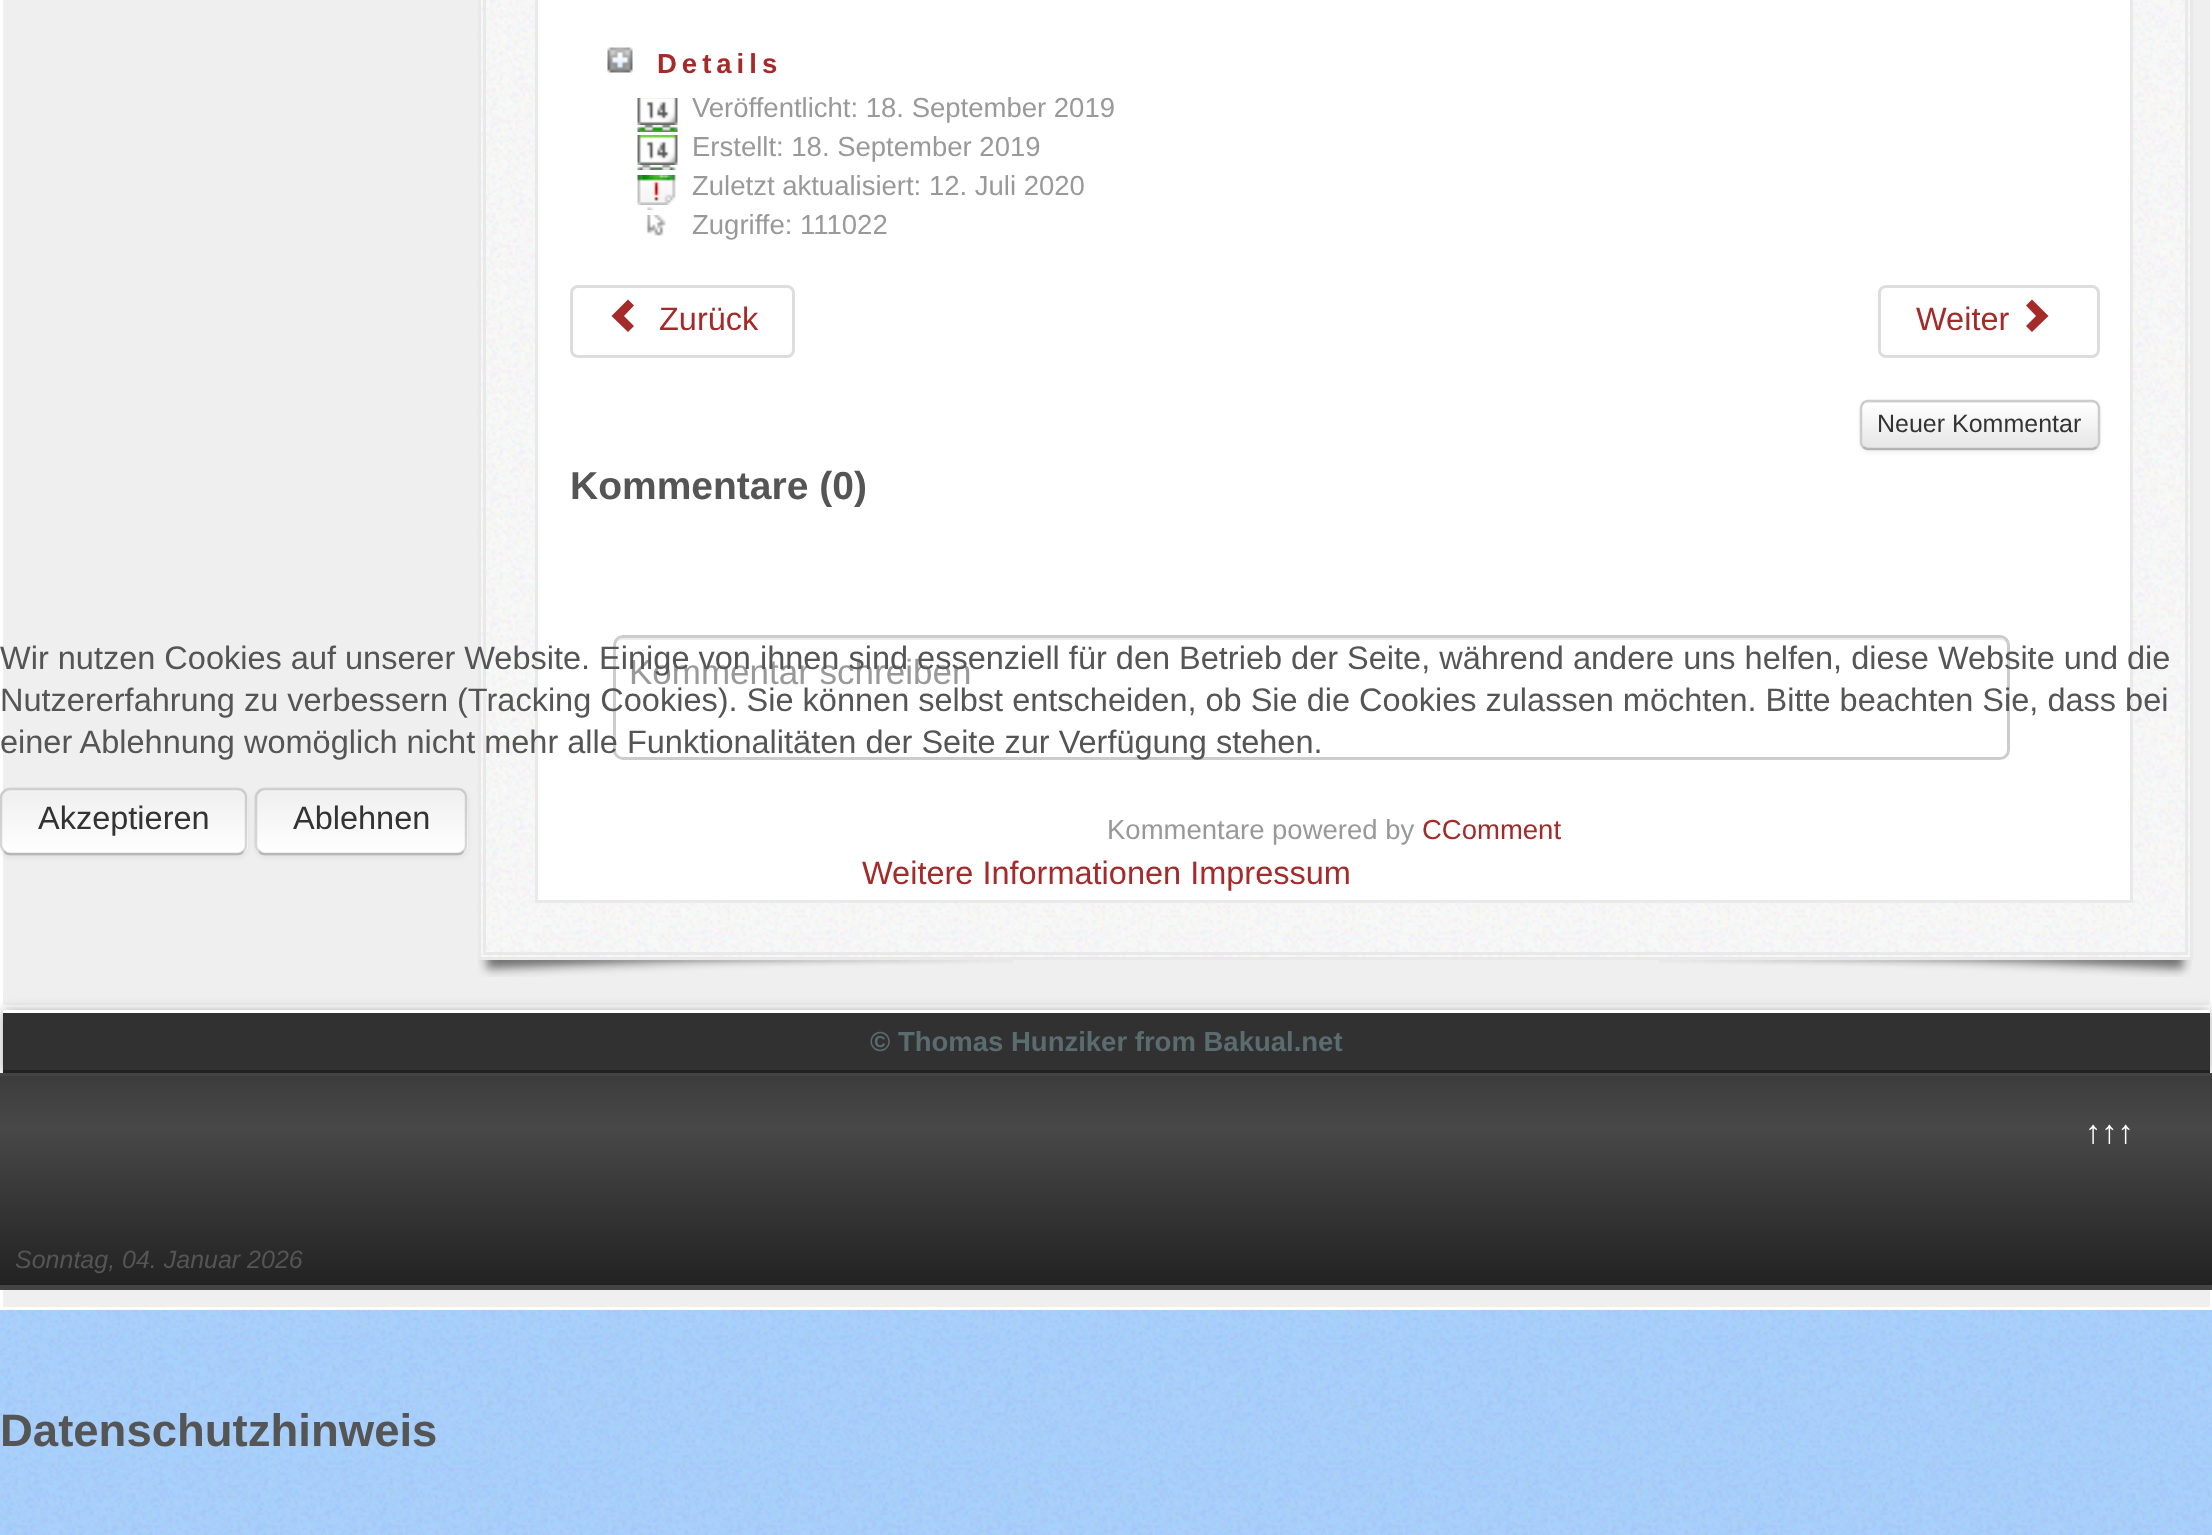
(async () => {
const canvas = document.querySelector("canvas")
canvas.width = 2212
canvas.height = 1535
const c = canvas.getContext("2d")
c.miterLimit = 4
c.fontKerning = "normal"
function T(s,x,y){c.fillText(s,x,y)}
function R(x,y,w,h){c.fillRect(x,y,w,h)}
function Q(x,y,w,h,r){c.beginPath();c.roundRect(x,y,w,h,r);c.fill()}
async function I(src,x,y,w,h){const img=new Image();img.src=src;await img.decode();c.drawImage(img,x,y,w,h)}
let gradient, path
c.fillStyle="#a2cdfd"
R(0,0,2212,1535)
await I("1.png",0,1310,2212,225)
c.fillStyle="#efefef"
c.beginPath()
c.rect(1.5,-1.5,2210,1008)
c.fill()
c.strokeStyle="#fff"
c.lineWidth=3
c.stroke()
c.fillStyle="#f9f9f9"
R(481,0,1709,957)
await I("2.png",477,0,1713,960)
c.strokeStyle="#e9e9e9"
c.strokeRect(479.5,-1.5,1712,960)
c.strokeRect(484.5,-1.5,1702,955)
c.fillStyle="#fff"
c.beginPath()
c.rect(536.5,-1.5,1595,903)
c.fill()
c.stroke()
await I("3.png",607,47,26,26)
c.letterSpacing="5px"
c.font="bold 27.5px Liberation Sans"
c.fillStyle="#a52a2a"
T("Details",657,73)
await I("4.png",637,98,41,34)
c.letterSpacing="0px"
c.font="27.5px Liberation Sans"
c.fillStyle="#999"
T("Veröffentlicht: 18. September 2019",692,117)
await I("5.png",637,135,41,35)
T("Erstellt: 18. September 2019",692,156)
await I("6.png",637,175,39,35)
T("Zuletzt aktualisiert: 12. Juli 2020",692,195)
await I("7.png",646,215,20,21)
T("Zugriffe: 111022",692,234)
c.beginPath()
c.roundRect(571.5,286.5,222,70,6.5)
c.strokeStyle="#ddd"
c.stroke()
c.fillStyle="#a52a2a"
path = new Path2D("M628 332l-16.5-16l16.5-16.5l6 6l-10 10.5l10 10z")
c.fill(path)
c.font="32.5px Liberation Sans"
T("Zurück",659,330)
c.beginPath()
c.roundRect(1879.5,286.5,219,70,6.5)
c.stroke()
T("Weiter",1916,330)
path = new Path2D("M2032 299.5l16.5 16.5l-16.5 16l-6-6l10-10l-10-10.5z")
c.fill(path)
c.fillStyle="#0000000d"
c.filter="blur(2.5px)"
c.beginPath()
c.roundRect(1860,403,240,50,8)
c.fill()
c.filter="none"
c.fillStyle="#f5f5f5"
Q(1860,400,240,50,8)
c.save()
c.beginPath()
c.roundRect(1860,400,240,50,8)
c.clip()
gradient = c.createLinearGradient(1980,403,1980,448)
gradient.addColorStop(0,"#fff")
gradient.addColorStop(1,"#e6e6e6")
c.fillStyle = gradient
R(1860,403,240,45)
c.restore()
path = new Path2D("M2097 447c-1.5 1-3 2-4.5 2h-225c-1.5 0-3-1-4.5-2")
c.strokeStyle="#b3b3b3"
c.lineWidth=2.5
c.stroke(path)
path = new Path2D("M1863 447c-1-1.5-2-3-2-4.5v-35c0-1.5 1-3 2-4.5c1.5-1 3-2 4.5-2h225c1.5 0 3 1 4.5 2c1 1.5 2 3 2 4.5v35c0 1.5-1 3-2 4.5")
c.strokeStyle="#ccc"
c.stroke(path)
c.font="25px Liberation Sans"
c.fillStyle="#333"
T("Neuer Kommentar",1877,432)
c.font="bold 39px Liberation Sans"
c.fillStyle="#555"
T("Kommentare (0)",570,499)
c.fillStyle="#ececec"
path = new Path2D("M622 640h1378c4 0 8 3 8 8v-2c0-4-4-8-8-8h-1377c-4 0-8 4-8 8v2c0-5 3-8 7-8z")
c.fill(path)
c.beginPath()
c.roundRect(614.5,636.5,1394,122,8.5)
c.lineWidth=3
c.stroke()
c.font="35px Liberation Sans"
c.fillStyle="#999"
T("Kommentar schreiben",629,684)
c.font="27.5px Liberation Sans"
T("Kommentare powered by",1107,839)
c.fillStyle="#a52a2a"
T("CComment",1422,839)
await I("8.png",478,960,535,17)
await I("9.png",1659,960,533,17)
c.font="32.5px Liberation Sans"
c.fillStyle="#555"
T("Wir nutzen Cookies auf unserer Website. Einige von ihnen sind essenziell für den Betrieb der Seite, während andere uns helfen, diese Website und die",0,669)
T("Nutzererfahrung zu verbessern (Tracking Cookies). Sie können selbst entscheiden, ob Sie die Cookies zulassen möchten. Bitte beachten Sie, dass bei",0,711)
T("einer Ablehnung womöglich nicht mehr alle Funktionalitäten der Seite zur Verfügung stehen.",0,753)
c.fillStyle="#0000000d"
c.filter="blur(2.5px)"
c.beginPath()
c.roundRect(0,790,248,68,10)
c.fill()
c.filter="none"
c.fillStyle="#f5f5f5"
Q(0,788,248,67,10)
c.save()
c.beginPath()
c.roundRect(0,788,248,67,10)
c.clip()
gradient = c.createLinearGradient(124,790,124,853)
gradient.addColorStop(0,"#efefef")
gradient.addColorStop(1,"#fff")
c.fillStyle = gradient
R(0,790,248,63)
c.restore()
c.fillStyle="#f2f2f2"
path = new Path2D("M10 792h228c4 0 7 4 7 8v-2c0-4-4-8-8-8h-226c-4 0-7 3-8 6c2-2 4-4 7-4z")
c.fill(path)
path = new Path2D("M243.5 851c-1.5 2-3.5 3-6 3h-227.5c-2.5 0-4.5-1-6-3")
c.strokeStyle="#00000040"
c.lineWidth=2.5
c.stroke(path)
path = new Path2D("M4 851c-2-1.5-2.5-3.5-3-6v-47.5c0-2.5 1-4.5 3-6c1.5-2 3.5-2.5 6-2.5h227.5c2.5 0 4.5 .5 6 2.5c2 1.5 2.5 3.5 2.5 6v47.5c0 2.5-.5 4.5-2.5 6")
c.strokeStyle="#00000026"
c.stroke(path)
c.fillStyle="#333"
T("Akzeptieren",38,829)
c.fillStyle="#0000000d"
c.filter="blur(2.5px)"
c.beginPath()
c.roundRect(255,790,213,68,10)
c.fill()
c.filter="none"
c.fillStyle="#f5f5f5"
Q(255,788,213,67,10)
c.save()
c.beginPath()
c.roundRect(255,788,213,67,10)
c.clip()
gradient = c.createLinearGradient(361,790,361,853)
gradient.addColorStop(0,"#efefef")
gradient.addColorStop(1,"#fff")
c.fillStyle = gradient
R(255,790,213,63)
c.restore()
c.fillStyle="#f2f2f2"
path = new Path2D("M265 792h193c4 0 7 4 7 8v-2c0-4-4-8-8-8h-191c-4 0-8 4-8 8v2c0-4 3-8 7-8z")
c.fill(path)
path = new Path2D("M463.5 851c-1.5 2-3.5 3-6 3h-192.5c-2.5 0-4.5-1-6-3")
c.strokeStyle="#00000040"
c.stroke(path)
path = new Path2D("M259 851c-2-1.5-3-3.5-3-6v-47.5c0-2.5 1-4.5 3-6c1.5-2 3.5-2.5 6-2.5h192.5c2.5 0 4.5 .5 6 2.5c2 1.5 2.5 3.5 2.5 6v47.5c0 2.5-.5 4.5-2.5 6")
c.strokeStyle="#00000026"
c.stroke(path)
c.fillStyle="#333"
T("Ablehnen",293,829)
c.fillStyle="#a52a2a"
T("Weitere Informationen Impressum",862,884)
c.fillStyle="#efefef"
R(3,1290,2207,17)
c.strokeStyle="#fff"
c.lineWidth=3
c.strokeRect(1.5,1009.5,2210,299)
c.fillStyle="#aaa"
c.filter="blur(6px)"
c.beginPath()
c.rect(3,1010,2207,63)
c.fill()
c.filter="none"
c.fillStyle="#313131"
R(3,1013,2207,57)
c.fillStyle="#fff"
R(3,1010,2207,3)
c.fillStyle="#222"
R(3,1070,2207,3)
c.font="bold 27.5px Liberation Sans"
c.fillStyle="#5b6c71"
T("© Thomas Hunziker from Bakual.net",870,1051)
gradient = c.createLinearGradient(1106,1075,1106,1285)
gradient.addColorStop(0,"#3c3c3c")
gradient.addColorStop(.25,"#484848")
gradient.addColorStop(1,"#222")
c.fillStyle = gradient
R(0,1076,2212,209)
c.fillStyle="#444"
R(0,1073,2212,3)
R(0,1285,2212,5)
c.font="32.5px Liberation Sans"
c.fillStyle="#fff"
T("↑↑↑",2085,1143)
c.font="italic 25px Liberation Sans"
c.fillStyle="#555"
T("Sonntag, 04. Januar 2026",15,1268)
c.font="bold 45.5px Liberation Sans"
T("Datenschutzhinweis",0,1446)
})()
